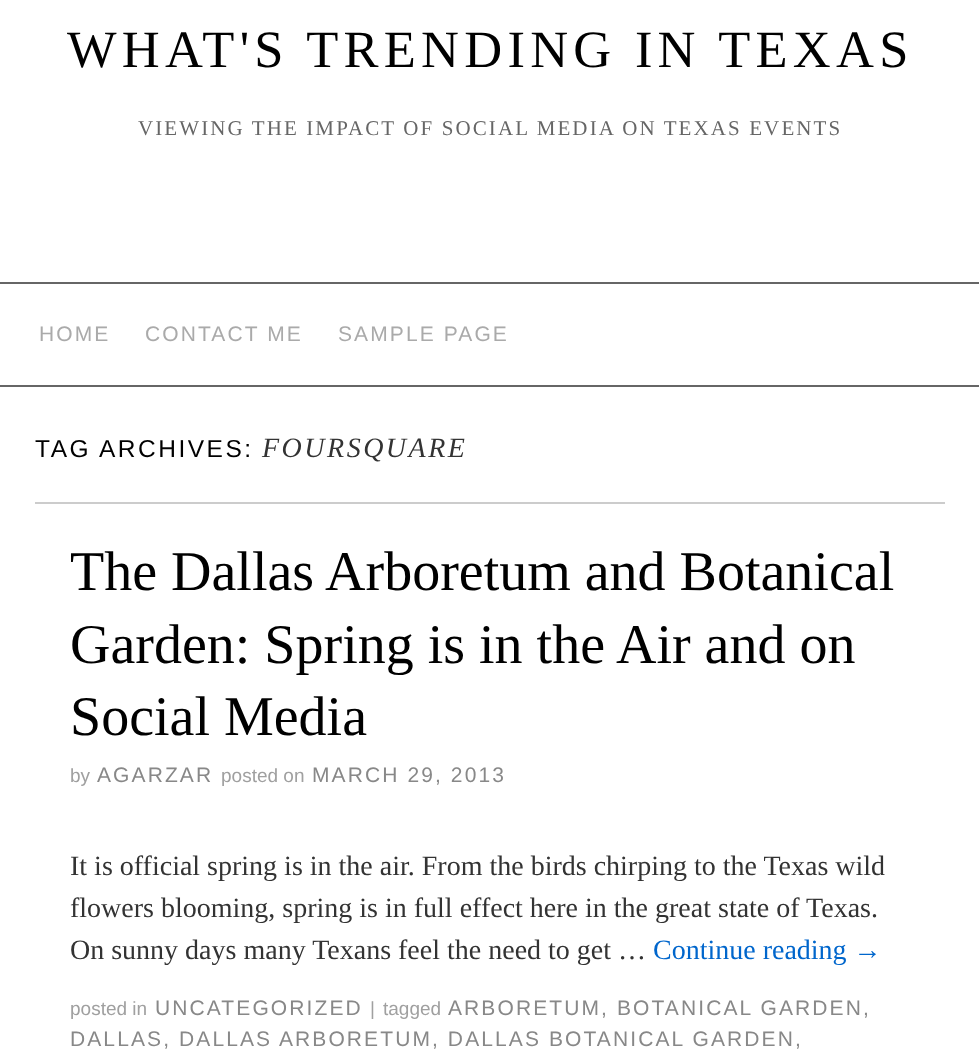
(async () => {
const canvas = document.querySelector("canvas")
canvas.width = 979
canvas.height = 1051
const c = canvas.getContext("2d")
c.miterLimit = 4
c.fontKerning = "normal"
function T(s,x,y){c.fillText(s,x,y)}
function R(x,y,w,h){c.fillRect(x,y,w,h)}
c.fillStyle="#fff"
R(0,0,979,1051)
c.letterSpacing="5.25px"
c.font="52.5px Liberation Serif"
c.fillStyle="#000"
T("WHAT'S TRENDING IN TEXAS",67,67)
c.letterSpacing="2.1px"
c.font="21px Liberation Serif"
c.fillStyle="#666"
T("VIEWING THE IMPACT OF SOCIAL MEDIA ON TEXAS EVENTS",138,135)
R(0,282,979,2)
R(0,385,979,2)
c.font="21px Liberation Sans"
c.fillStyle="#aaa"
T("HOME",39,341)
T("CONTACT ME",145,341)
T("SAMPLE PAGE",338,341)
c.letterSpacing="2.5px"
c.font="24.5px Liberation Sans"
c.fillStyle="#000"
T("TAG ARCHIVES:",35,457)
c.font="italic 28px Liberation Serif"
c.fillStyle="#333"
T("FOURSQUARE",262,457)
c.fillStyle="#ccc"
R(35,502,910,2)
c.letterSpacing="0px"
c.font="56px Liberation Serif"
c.fillStyle="#000"
T("The Dallas Arboretum and Botanical",70,590)
T("Garden: Spring is in the Air and on",70,663)
T("Social Media",70,735)
c.font="19px Liberation Sans"
c.fillStyle="#a0a0a0"
T("by",70,782)
c.letterSpacing="2.1px"
c.font="21px Liberation Sans"
c.fillStyle="#888"
T("AGARZAR",97,782)
c.letterSpacing="0px"
c.font="19px Liberation Sans"
c.fillStyle="#a0a0a0"
T("posted on",221,782)
c.letterSpacing="2.1px"
c.font="21px Liberation Sans"
c.fillStyle="#888"
T("MARCH 29, 2013",312,782)
c.letterSpacing="0px"
c.font="28px Liberation Serif"
c.fillStyle="#333"
T("It is official spring is in the air. From the birds chirping to the Texas wild",70,875)
T("flowers blooming, spring is in full effect here in the great state of Texas.",70,917)
T("On sunny days many Texans feel the need to get …",70,959)
c.fillStyle="#06c"
T("Continue reading →",653,959)
c.font="19px Liberation Sans"
c.fillStyle="#a0a0a0"
T("posted in",70,1015)
c.letterSpacing="2.1px"
c.font="21px Liberation Sans"
c.fillStyle="#888"
T("UNCATEGORIZED",155,1015)
c.letterSpacing="0px"
c.font="19px Liberation Sans"
c.fillStyle="#a0a0a0"
T("|",370,1015)
T("tagged",383,1015)
c.letterSpacing="2.1px"
c.font="21px Liberation Sans"
c.fillStyle="#888"
T("ARBORETUM, BOTANICAL GARDEN,",448,1015)
T("DALLAS, DALLAS ARBORETUM, DALLAS BOTANICAL GARDEN,",70,1046)
})()
